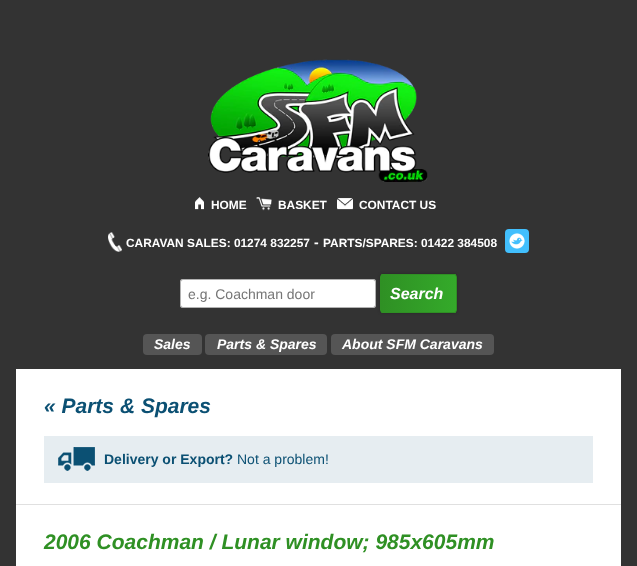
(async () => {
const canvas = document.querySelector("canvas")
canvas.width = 637
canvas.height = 566
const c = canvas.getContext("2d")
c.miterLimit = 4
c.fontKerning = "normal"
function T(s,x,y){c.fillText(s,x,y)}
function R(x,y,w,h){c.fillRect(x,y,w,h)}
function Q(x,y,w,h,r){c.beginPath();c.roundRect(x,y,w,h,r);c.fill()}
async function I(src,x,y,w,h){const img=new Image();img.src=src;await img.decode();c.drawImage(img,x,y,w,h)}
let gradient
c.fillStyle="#333"
R(0,0,637,566)
await I("1.png",208,59,220,123)
await I("2.png",195,197,9,13)
c.font="bold 11.9px Liberation Sans"
c.fillStyle="#fff"
T("HOME",211,209)
await I("3.png",256,197,16,14)
T("BASKET",278,209)
await I("4.png",337,198,16,12)
T("CONTACT US",359,209)
await I("5.png",108,232,14,20)
T("CARAVAN SALES: 01274 832257",126,247)
c.font="bold 14px Liberation Sans"
T("-",314,247)
c.font="bold 11.9px Liberation Sans"
T("PARTS/SPARES: 01422 384508",323,247)
c.fillStyle="#42bffd"
Q(505,229,24,24,4)
await I("6.png",509,233,16,16)
c.fillStyle="#fff"
Q(180,279,196,29,3)
c.beginPath()
c.roundRect(180.5,279.5,195,28,2.5)
c.strokeStyle="#0000004d"
c.stroke()
c.font="14px Liberation Sans"
c.fillStyle="#757575"
T("e.g. Coachman door",188,299)
c.fillStyle="#00000040"
c.filter="blur(1.5px)"
c.beginPath()
c.roundRect(380,274,77,39,3)
c.fill()
c.filter="none"
c.save()
c.beginPath()
c.roundRect(380,274,77,39,3)
c.clip()
gradient = c.createLinearGradient(381,294,456,294)
gradient.addColorStop(0,"#2f9024")
gradient.addColorStop(1,"#34aa2a")
c.fillStyle = gradient
R(381,274,75,39)
c.restore()
c.beginPath()
c.roundRect(380.5,274.5,76,38,2.5)
c.strokeStyle="#2f9024"
c.stroke()
c.font="italic bold 16px Liberation Sans"
c.fillStyle="#fff"
T("Search",390,299)
c.fillStyle="#555"
Q(143,334,59,21,4)
c.font="italic bold 14px Liberation Sans"
c.fillStyle="#fff"
T("Sales",154,349)
c.fillStyle="#555"
Q(205,334,122,21,4)
c.fillStyle="#fff"
T("Parts & Spares",217,349)
c.fillStyle="#555"
Q(331,334,163,21,4)
c.fillStyle="#fff"
T("About SFM Caravans",342,349)
R(16,369,605,197)
c.fillStyle="#e0e0e0"
R(16,504,605,1)
c.font="italic bold 21px Liberation Sans"
c.fillStyle="#0b5073"
T("« Parts & Spares",44,413)
c.fillStyle="#e6edf1"
R(44,436,549,47)
await I("7.png",58,447,37,24)
c.font="bold 14px Liberation Sans"
c.fillStyle="#0b5073"
T("Delivery or Export?",104,464)
c.font="14px Liberation Sans"
T("Not a problem!",237,464)
c.font="italic bold 21px Liberation Sans"
c.fillStyle="#2f9024"
T("2006 Coachman / Lunar window; 985x605mm",44,549)
})()
